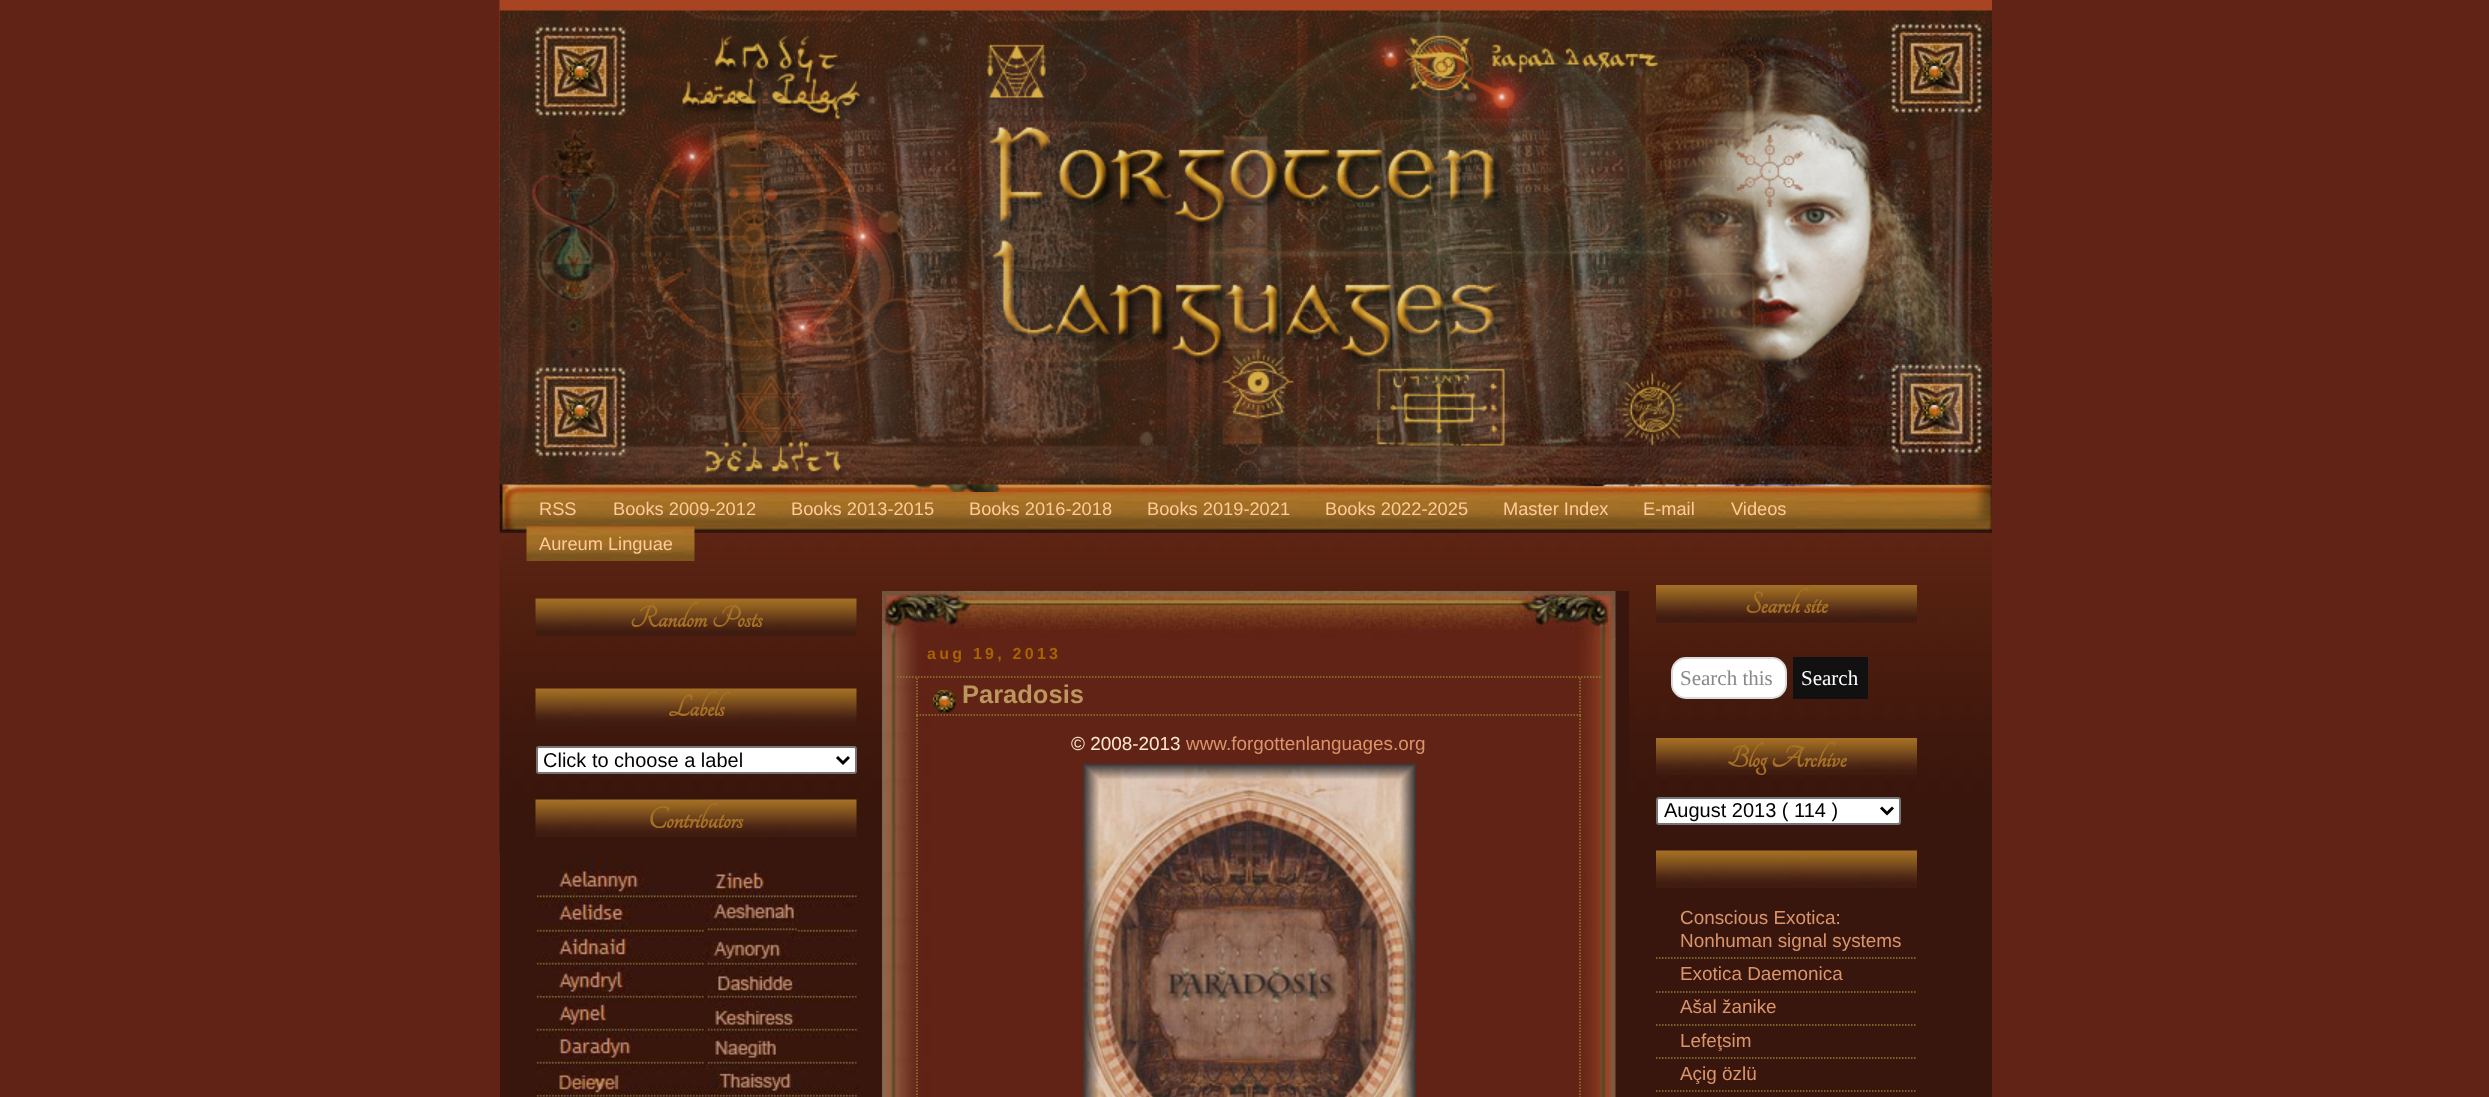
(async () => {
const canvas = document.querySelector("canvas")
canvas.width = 2489
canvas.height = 1097
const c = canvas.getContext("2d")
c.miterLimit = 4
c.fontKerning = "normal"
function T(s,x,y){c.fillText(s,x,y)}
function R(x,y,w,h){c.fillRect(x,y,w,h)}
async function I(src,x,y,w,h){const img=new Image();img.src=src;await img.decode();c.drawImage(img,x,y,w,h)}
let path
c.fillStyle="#612316"
R(0,0,2489,1097)
c.fillStyle="#38160d"
R(500,853,1492,244)
await I("1.png",499,0,1493,854)
c.fillStyle="#38160c"
R(500,532,1492,1)
await I("3.png",499,469,1493,64)
await I("2.png",499,10,1493,475)
await I("4.png",527,492,13,33)
await I("5.png",540,492,59,34)
c.font="18.25px Liberation Sans"
c.fillStyle="#fc9"
T("RSS",539,515)
await I("6.png",599,492,4,33)
await I("7.png",603,492,174,35)
T("Books 2009-2012",613,515)
await I("8.png",777,492,5,33)
await I("9.png",782,492,174,34)
T("Books 2013-2015",791,515)
await I("10.png",956,492,4,30)
await I("11.png",960,492,173,35)
T("Books 2016-2018",969,515)
await I("10.png",1133,492,4,30)
await I("12.png",1137,492,174,35)
T("Books 2019-2021",1147,515)
await I("13.png",1311,492,5,30)
await I("14.png",1316,492,174,35)
T("Books 2022-2025",1325,515)
await I("6.png",1490,492,4,33)
await I("15.png",1494,492,137,35)
T("Master Index",1503,515)
await I("8.png",1631,492,5,33)
await I("16.png",1636,492,82,35)
T("E-mail",1643,515)
await I("10.png",1718,492,4,30)
await I("17.png",1722,492,87,34)
T("Videos",1731,515)
await I("18.png",526,526,14,35)
await I("19.png",531,526,164,35)
T("Aureum Linguae",539,550)
await I("20.png",535,598,322,38)
c.font="bold 32.5px Tangerine"
c.fillStyle="#a57125"
T("Random Posts",630,627)
await I("21.png",535,688,322,38)
T("Labels",668,716)
c.fillStyle="#fff"
c.beginPath()
c.roundRect(537,747,319,26,2)
c.fill()
c.strokeStyle="#767676"
c.lineWidth=2
c.stroke()
path = new Path2D("M837 757l6 6l6-6")
c.strokeStyle="#000"
c.lineWidth=3
c.stroke(path)
c.font="20px Liberation Sans"
c.fillStyle="#000"
T("Click to choose a label",543,767)
await I("22.png",535,799,322,38)
c.font="bold 32.5px Tangerine"
c.fillStyle="#a57125"
T("Contributors",648,828)
await I("23.png",535,858,325,239)
c.fillStyle="#38160d"
R(1615,591,14,200)
await I("24.png",882,591,734,50)
await I("25.png",882,639,734,458)
c.letterSpacing="3.25px"
c.font="bold 16px Liberation Sans"
c.fillStyle="#a86400"
T("aug 19, 2013",927,659)
path = new Path2D("M897 677h703.5")
c.strokeStyle="#907e2f"
c.lineWidth=1.5
c.setLineDash([1.5,1.5])
c.stroke(path)
await I("26.png",933,690,23,23)
path = new Path2D("M1580 678v37.5")
c.stroke(path)
path = new Path2D("M916.5 715h664.5")
c.stroke(path)
path = new Path2D("M917 678v37.5")
c.stroke(path)
c.letterSpacing="0px"
c.font="bold 25.5px Liberation Sans"
c.fillStyle="#bd965d"
T("Paradosis",962,703)
path = new Path2D("M1580 715.5v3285")
c.stroke(path)
path = new Path2D("M917 715.5v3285")
c.stroke(path)
c.font="18.9px Liberation Sans"
c.fillStyle="#fee6cf"
T("© 2008-2013",1071,750)
c.fillStyle="#db956a"
T("www.forgottenlanguages.org",1186,750)
await I("27.png",1083,763,333,334)
await I("28.png",1656,585,261,38)
c.font="bold 32.5px Tangerine"
c.fillStyle="#a57125"
T("Search site",1745,613)
c.fillStyle="#fff"
c.beginPath()
c.roundRect(1672,658,114,40,14)
c.fill()
c.strokeStyle="#dcdcdc"
c.lineWidth=2
c.setLineDash([])
c.stroke()
c.font="21px Liberation Serif"
c.fillStyle="#888"
T("Search this",1680,685)
c.fillStyle="#111"
R(1793,657,75,42)
c.fillStyle="#fff"
T("Search",1801,685)
await I("29.png",1656,738,261,37)
c.font="bold 32.5px Tangerine"
c.fillStyle="#a57125"
T("Blog Archive",1727,767)
c.fillStyle="#fff"
c.beginPath()
c.roundRect(1657,798,243,26,2)
c.fill()
c.strokeStyle="#767676"
c.stroke()
path = new Path2D("M1881 807.5l6 6l6-6")
c.strokeStyle="#000"
c.lineWidth=3
c.stroke(path)
c.font="20px Liberation Sans"
c.fillStyle="#000"
T("August 2013 ( 114 )",1664,817)
await I("30.png",1656,850,261,38)
path = new Path2D("M1656 958h261")
c.strokeStyle="#907e2f"
c.lineWidth=1.5
c.setLineDash([1.5,1.5])
c.stroke(path)
c.font="18.9px Liberation Sans"
c.fillStyle="#db956a"
T("Conscious Exotica:",1680,924)
T("Nonhuman signal systems",1680,947)
path = new Path2D("M1656 992h261")
c.stroke(path)
T("Exotica Daemonica",1680,980)
path = new Path2D("M1656 1025h261")
c.stroke(path)
T("Ašal žanike",1680,1013)
path = new Path2D("M1656 1058h261")
c.stroke(path)
T("Lefeţsim",1680,1047)
path = new Path2D("M1656 1091h261")
c.stroke(path)
T("Açig özlü",1680,1080)
})()
